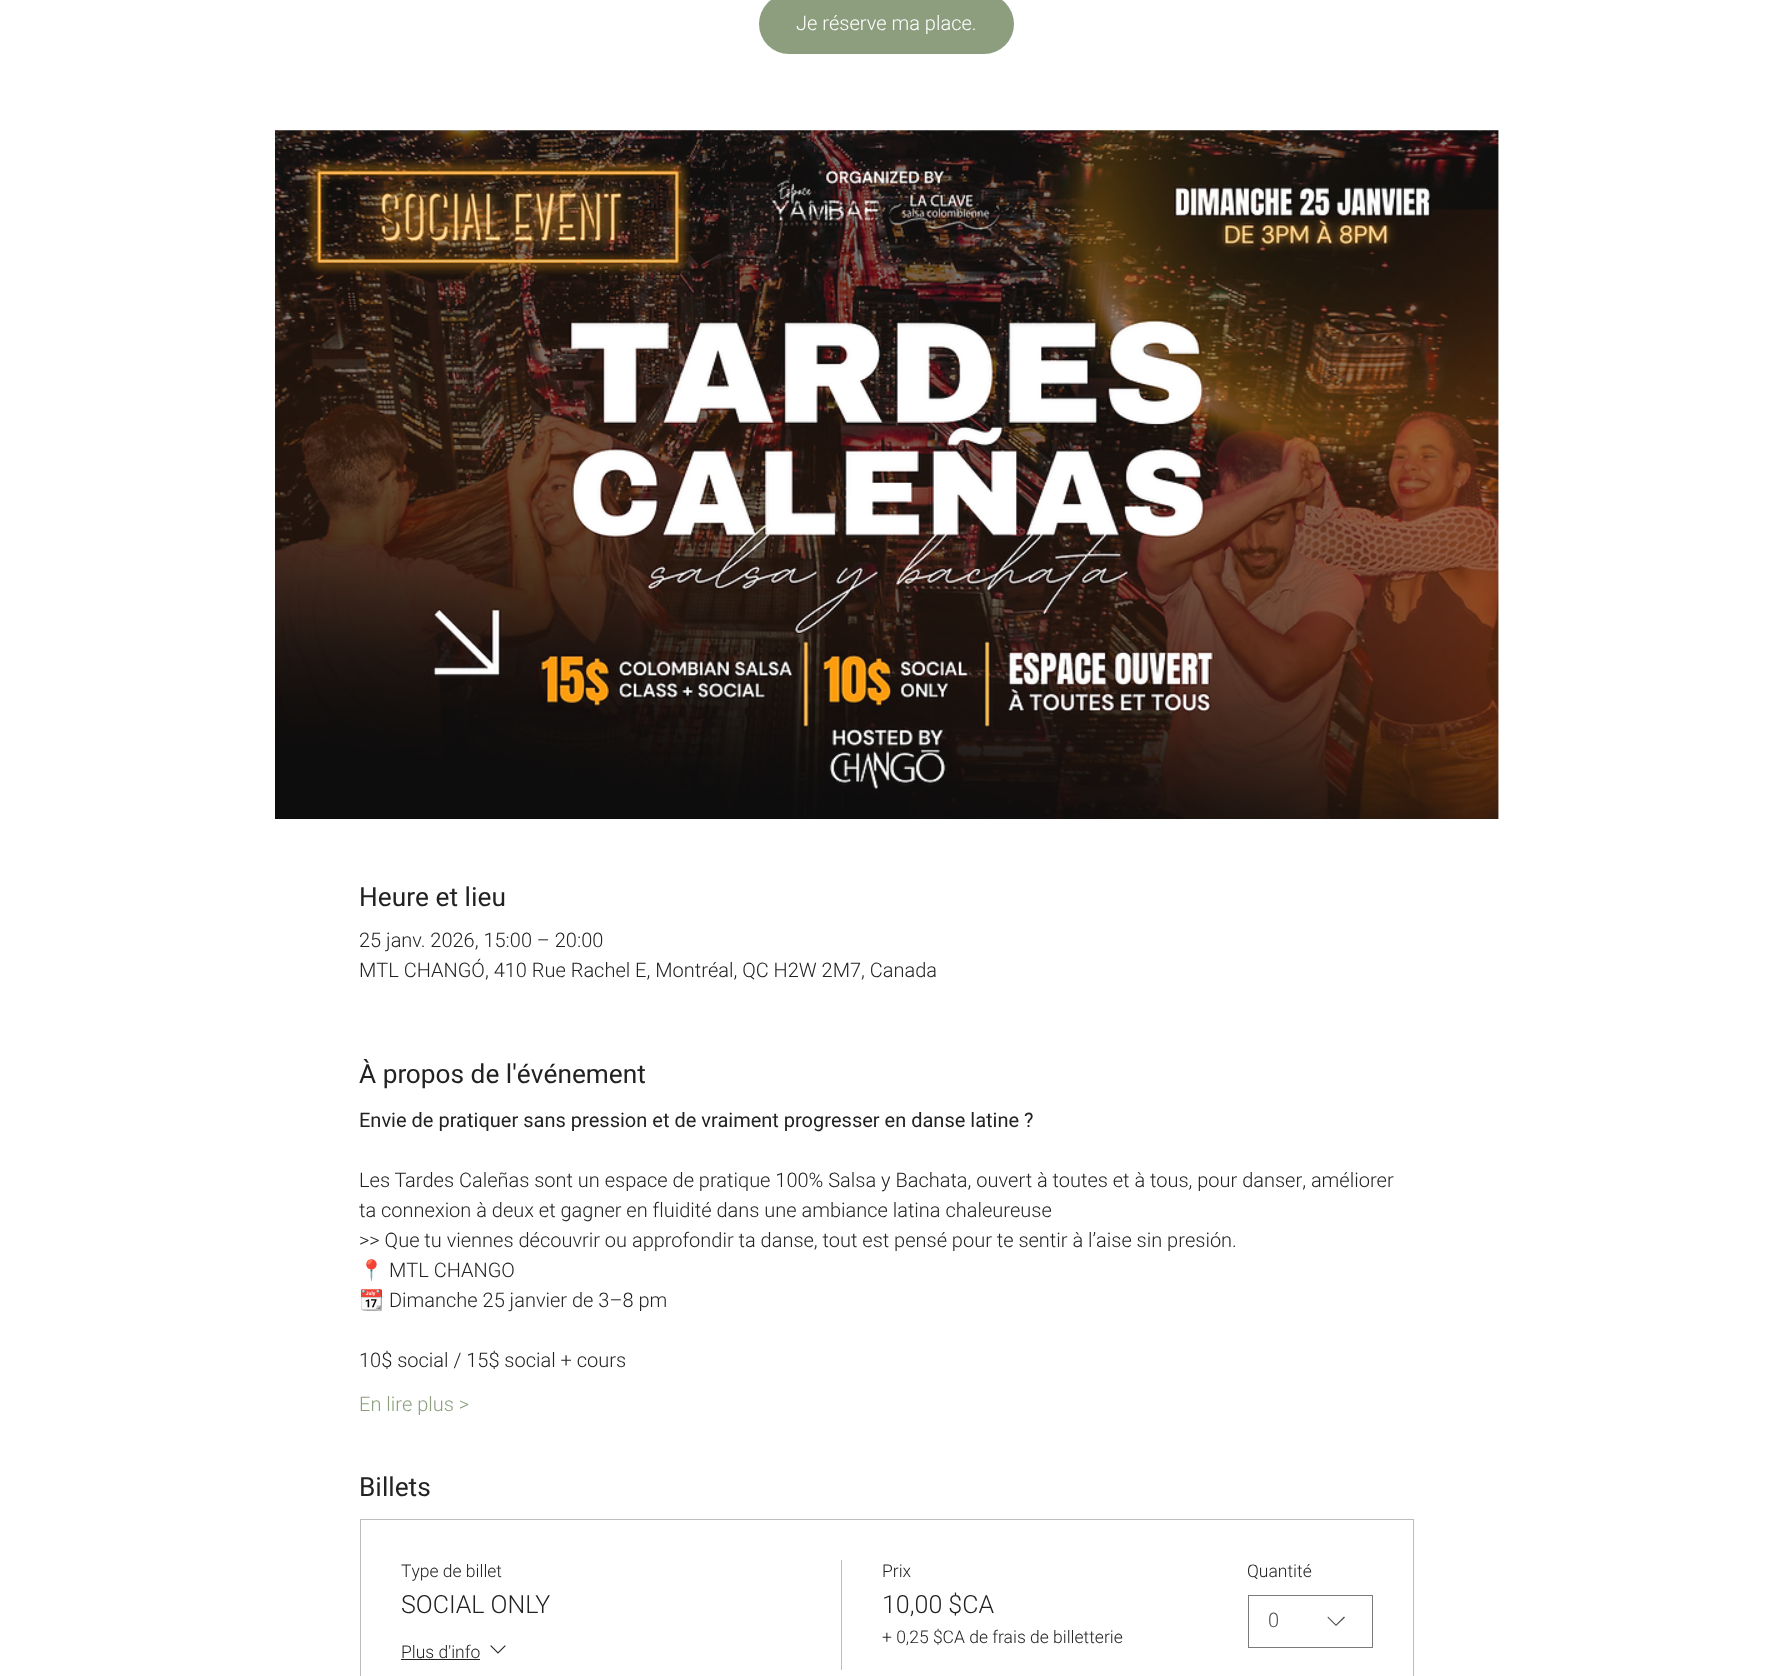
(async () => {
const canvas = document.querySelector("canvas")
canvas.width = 1772
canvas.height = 1676
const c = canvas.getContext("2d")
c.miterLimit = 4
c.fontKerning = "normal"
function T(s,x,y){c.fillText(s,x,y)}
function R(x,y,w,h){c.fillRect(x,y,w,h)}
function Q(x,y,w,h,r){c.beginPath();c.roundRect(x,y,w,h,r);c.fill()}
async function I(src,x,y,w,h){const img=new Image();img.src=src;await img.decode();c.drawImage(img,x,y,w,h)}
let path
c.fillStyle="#fff"
R(0,0,1772,1676)
c.fillStyle="#8c9e7e"
Q(759,-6,255,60,30)
c.font="300 20px Heebo"
c.fillStyle="#fff"
T("Je réserve ma place.",796,30)
await I("1.png",275,130,1224,689)
c.font="26.25px Heebo"
c.fillStyle="#222"
T("Heure et lieu",359,906)
c.font="300 20px Heebo"
T("25 janv. 2026, 15:00 – 20:00",359,947)
T("MTL CHANGÓ, 410 Rue Rachel E, Montréal, QC H2W 2M7, Canada",359,977)
c.font="26.25px Heebo"
T("À propos de l'événement",359,1083)
c.font="20px 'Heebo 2'"
T("Envie de pratiquer sans pression et de vraiment progresser en danse latine ?",359,1127)
c.font="300 20px Heebo"
T("Les Tardes Caleñas sont un espace de pratique 100% Salsa y Bachata, ouvert à toutes et à tous, pour danser, améliorer",359,1187)
T("ta connexion à deux et gagner en fluidité dans une ambiance latina chaleureuse",359,1217)
T(">> Que tu viennes découvrir ou approfondir ta danse, tout est pensé pour te sentir à l’aise sin presión.",359,1247)
c.font="20px Noto Color Emoji"
T("📍",359,1277)
c.font="300 20px Heebo"
T("MTL CHANGO",389,1277)
c.font="20px Noto Color Emoji"
T("📆",359,1307)
c.font="300 20px Heebo"
T("Dimanche 25 janvier de 3–8 pm",389,1307)
T("10$ social / 15$ social + cours",359,1367)
c.fillStyle="#8c9e7e"
T("En lire plus >",359,1411)
c.font="26.25px Heebo"
c.fillStyle="#222"
T("Billets",359,1496)
c.strokeStyle="#bdbdbd"
c.strokeRect(360.5,1519.5,1053,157)
c.font="300 17.5px Heebo"
T("Type de billet",401,1577)
c.font="300 25px Heebo"
T("SOCIAL ONLY",401,1613)
c.font="300 17.5px Heebo"
T("Plus d'info",401,1658)
R(401,1659,79,1)
await I("2.png",490,1645,16,9)
c.fillStyle="#bdbdbd"
R(841,1560,1,110)
c.fillStyle="#222"
T("Prix",882,1577)
c.font="300 25px Heebo"
T("10,00 $CA",882,1613)
c.font="300 17.5px Heebo"
T("+ 0,25 $CA de frais de billetterie",882,1643)
T("Quantité",1247,1577)
c.strokeStyle="#7a7a7a"
c.strokeRect(1248.5,1595.5,124,52)
c.font="300 20px Heebo"
c.fillStyle="#4e4e4e"
T("0",1268,1627)
path = new Path2D("M1344 1616.5l1 1l-9 8.5l-8.5-8.5l.5-1l8 8z")
c.fill(path,"evenodd")
})()
